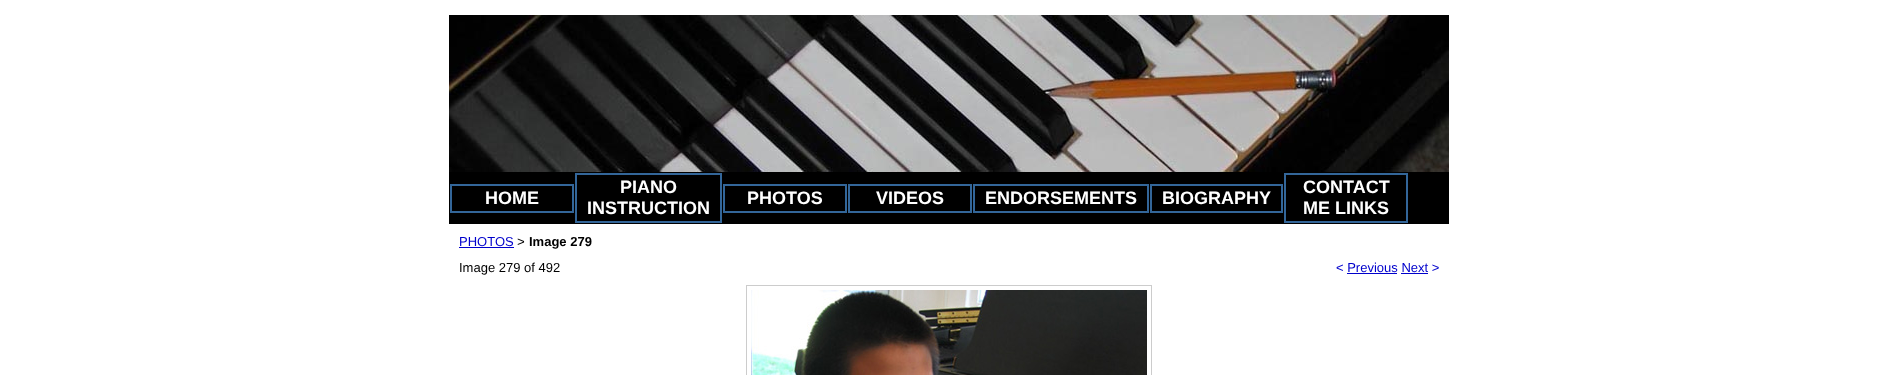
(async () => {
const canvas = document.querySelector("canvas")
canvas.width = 1898
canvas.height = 375
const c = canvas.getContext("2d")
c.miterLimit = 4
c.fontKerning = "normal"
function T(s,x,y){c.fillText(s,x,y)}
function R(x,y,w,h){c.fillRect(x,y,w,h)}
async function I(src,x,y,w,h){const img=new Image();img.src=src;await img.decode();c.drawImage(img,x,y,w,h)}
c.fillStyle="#fff"
R(0,0,1898,375)
await I("1.png",449,15,1000,157)
c.fillStyle="#000"
R(449,172,1000,52)
c.fillStyle="#369"
R(450,184,124,29)
c.fillStyle="#000"
R(452,186,120,25)
c.font="bold 18px Liberation Sans"
c.fillStyle="#fff"
T("HOME",485,204)
c.fillStyle="#369"
R(575,173,147,50)
c.fillStyle="#000"
R(577,175,143,46)
c.fillStyle="#fff"
T("PIANO",620,193)
T("INSTRUCTION",587,214)
c.fillStyle="#369"
R(723,184,124,29)
c.fillStyle="#000"
R(725,186,120,25)
c.fillStyle="#fff"
T("PHOTOS",747,204)
c.fillStyle="#369"
R(848,184,124,29)
c.fillStyle="#000"
R(850,186,120,25)
c.fillStyle="#fff"
T("VIDEOS",876,204)
c.fillStyle="#369"
R(973,184,176,29)
c.fillStyle="#000"
R(975,186,172,25)
c.fillStyle="#fff"
T("ENDORSEMENTS",985,204)
c.fillStyle="#369"
R(1150,184,133,29)
c.fillStyle="#000"
R(1152,186,129,25)
c.fillStyle="#fff"
T("BIOGRAPHY",1162,204)
c.fillStyle="#369"
R(1284,173,124,50)
c.fillStyle="#000"
R(1286,175,120,46)
c.fillStyle="#fff"
T("CONTACT",1303,193)
T("ME LINKS",1303,214)
c.font="13px Liberation Sans"
c.fillStyle="#00c"
T("PHOTOS",459,246)
R(459,247,55,1)
c.font="13px Liberation Mono"
c.fillStyle="#000"
T(">",517,246)
c.font="bold 13px Liberation Sans"
T("Image 279",529,246)
c.font="13px Liberation Sans"
T("Image 279 of 492",459,272)
c.fillStyle="#00c"
T("< Previous Next >",1336,272)
R(1347,273,50,1)
R(1401,273,27,1)
c.strokeStyle="#ccc"
c.strokeRect(746.5,285.5,405,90)
await I("2.png",751,290,396,85)
})()
